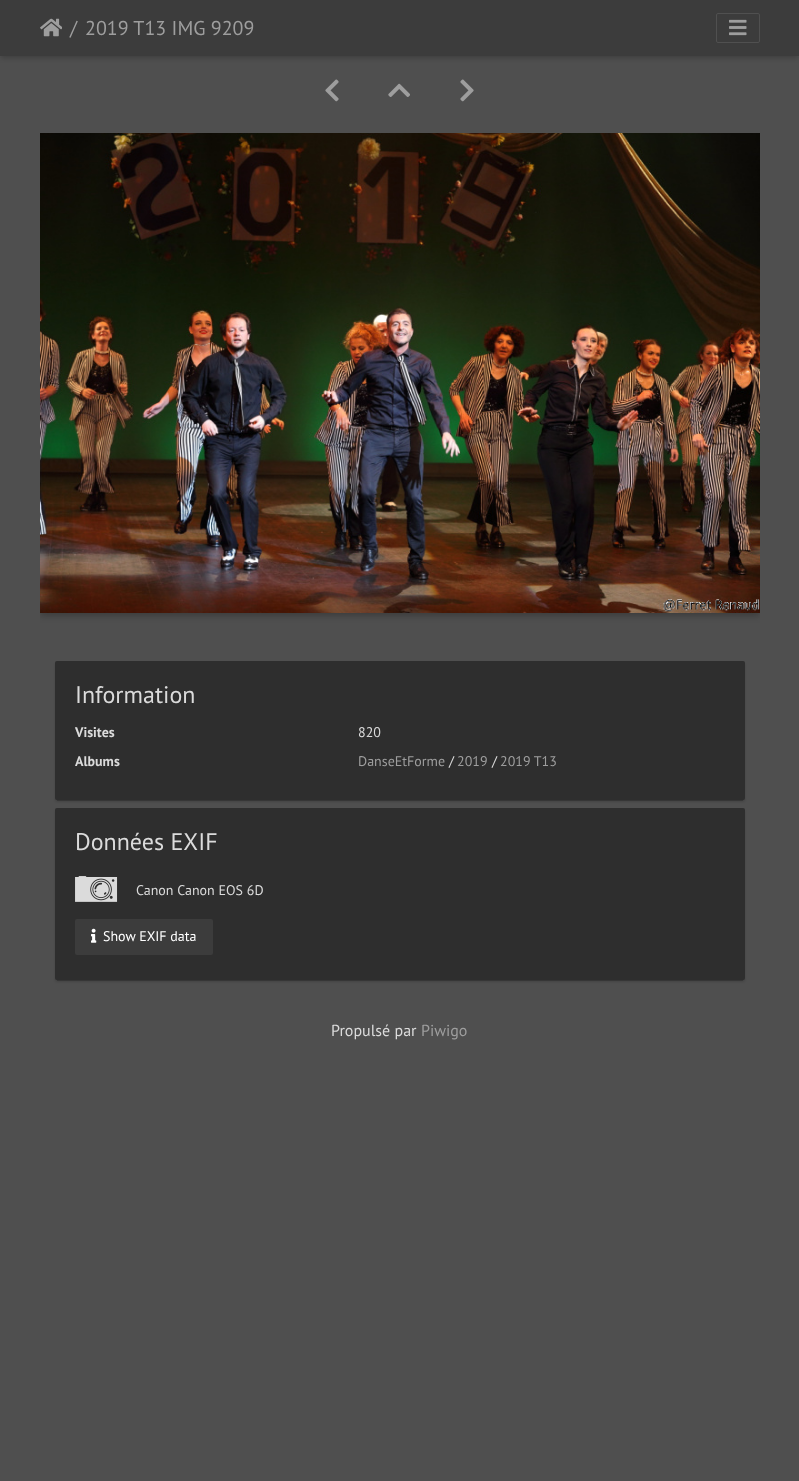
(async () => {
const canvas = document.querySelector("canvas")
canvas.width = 799
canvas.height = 1481
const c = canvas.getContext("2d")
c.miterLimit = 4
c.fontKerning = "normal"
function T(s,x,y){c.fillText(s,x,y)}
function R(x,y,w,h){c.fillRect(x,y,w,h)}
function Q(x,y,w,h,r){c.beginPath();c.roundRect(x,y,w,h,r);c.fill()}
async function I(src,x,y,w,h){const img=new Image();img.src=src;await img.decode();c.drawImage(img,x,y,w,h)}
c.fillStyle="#4f4f4f"
R(0,0,799,1481)
c.fillStyle="#00000033"
c.filter="blur(2.5px)"
c.beginPath()
c.rect(1,4,797,54)
c.fill()
c.filter="none"
c.fillStyle="#3c3c3c"
R(0,0,799,56)
await I("1.png",40,18,22,19)
c.font="20px PT Sans"
c.fillStyle="#9e9e9e"
T("/",70,35)
T("2019 T13 IMG 9209",85,35)
c.beginPath()
c.roundRect(716.5,13.5,43,29,1.5)
c.strokeStyle="#505050"
c.stroke()
await I("2.png",729,19,18,17)
await I("3.png",325,79,14,23)
await I("4.png",388,83,22,14)
await I("5.png",460,79,14,23)
c.save()
c.beginPath()
c.rect(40,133,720,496)
c.clip()
c.fillStyle="#0000003b"
c.filter="blur(3px)"
c.beginPath()
c.rect(40,136,720,480)
c.fill()
c.filter="none"
c.restore()
await I("6.png",40,133,720,480)
c.fillStyle="#00000033"
c.filter="blur(0.5px)"
c.beginPath()
c.rect(57,666,686,135)
c.fill()
c.filter="none"
c.fillStyle="#00000024"
c.filter="blur(1px)"
c.beginPath()
c.roundRect(55,663,690,139,2)
c.fill()
c.filter="none"
c.fillStyle="#2e2e2e"
Q(55,661,690,139,2)
c.font="24px PT Sans"
c.fillStyle="#dbdbdb"
T("Information",75,703)
c.font="bold 14px PT Sans"
T("Visites",75,737)
c.font="14px PT Sans"
T("820",358,737)
c.font="bold 14px PT Sans"
T("Albums",75,766)
c.font="14px PT Sans"
c.fillStyle="#9e9e9e"
T("DanseEtForme",358,766)
c.fillStyle="#dbdbdb"
T("/",449,766)
c.fillStyle="#9e9e9e"
T("2019",457,766)
c.fillStyle="#dbdbdb"
T("/",492,766)
c.fillStyle="#9e9e9e"
T("2019 T13",500,766)
c.fillStyle="#00000033"
c.filter="blur(0.5px)"
c.beginPath()
c.rect(57,813,686,168)
c.fill()
c.filter="none"
c.fillStyle="#00000024"
c.filter="blur(1px)"
c.beginPath()
c.roundRect(55,810,690,172,2)
c.fill()
c.filter="none"
c.fillStyle="#2e2e2e"
Q(55,808,690,172,2)
c.font="24px PT Sans"
c.fillStyle="#dbdbdb"
T("Données EXIF",75,850)
await I("7.png",75,876,43,26)
c.font="14px PT Sans"
T("Canon Canon EOS 6D",136,895)
c.fillStyle="#3c3c3c"
Q(75,919,138,36,2)
await I("8.png",91,928,6,15)
c.fillStyle="#fff"
T("Show EXIF data",103,941)
c.font="16px PT Sans"
c.fillStyle="#dbdbdb"
T("Propulsé par",331,1036)
c.fillStyle="#9e9e9e"
T("Piwigo",421,1036)
})()
